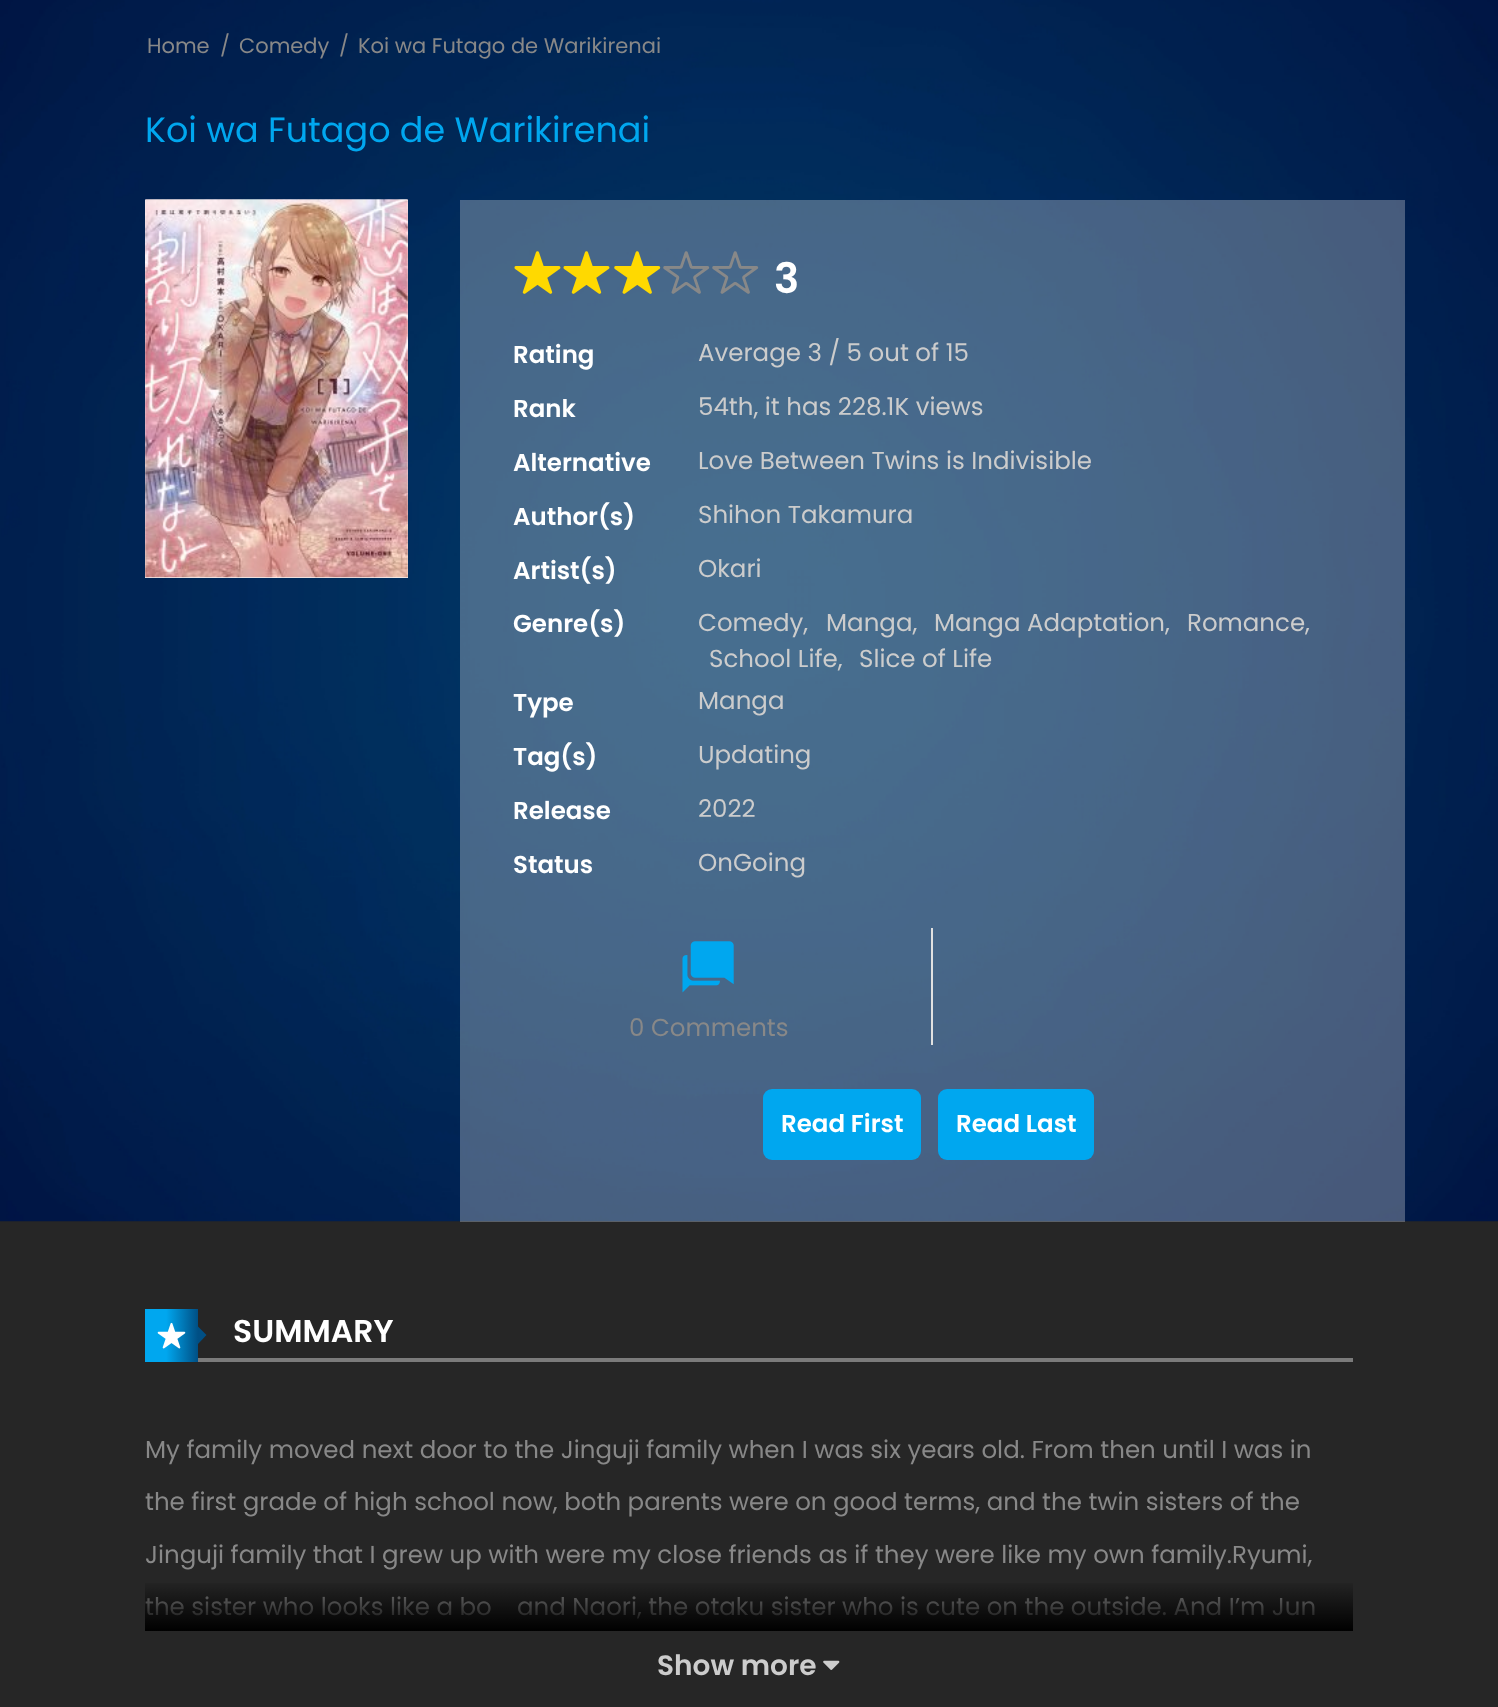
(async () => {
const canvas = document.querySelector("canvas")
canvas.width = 1498
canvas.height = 1707
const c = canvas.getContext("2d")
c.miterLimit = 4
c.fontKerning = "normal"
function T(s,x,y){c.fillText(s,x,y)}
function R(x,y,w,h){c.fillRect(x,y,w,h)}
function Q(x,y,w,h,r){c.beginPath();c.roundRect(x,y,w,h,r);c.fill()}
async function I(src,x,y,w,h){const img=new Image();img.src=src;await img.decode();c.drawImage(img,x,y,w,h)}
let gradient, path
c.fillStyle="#262626"
R(0,0,1498,1707)
await I("1.png",0,0,1498,1222)
c.font="21px Poppins"
c.fillStyle="#888"
T("Home",147,53)
T("/",220,53)
T("Comedy",239,53)
T("/",339,53)
T("Koi wa Futago de Warikirenai",358,53)
c.font="35px Poppins"
c.fillStyle="#00a7ef"
T("Koi wa Futago de Warikirenai",145,142)
c.fillStyle="#f5f5f5"
R(145,200,263,378)
await I("2.png",145,199,263,379)
c.fillStyle="#ebebeb4d"
R(460,200,945,1022)
await I("3.png",514,251,47,43)
await I("4.png",563,251,47,43)
await I("5.png",614,251,47,43)
await I("6.png",663,251,47,43)
await I("7.png",712,251,47,43)
c.font="600 42px Poppins"
c.fillStyle="#fff"
T("3",774,293)
c.font="600 24.5px Poppins"
T("Rating",513,363)
c.font="24.5px Poppins"
c.fillStyle="#ccc"
T("Average 3 / 5 out of 15",698,361)
c.font="600 24.5px Poppins"
c.fillStyle="#fff"
T("Rank",513,417)
c.font="24.5px Poppins"
c.fillStyle="#ccc"
T("54th, it has 228.1K views",698,415)
c.font="600 24.5px Poppins"
c.fillStyle="#fff"
T("Alternative",513,471)
c.font="24.5px Poppins"
c.fillStyle="#ccc"
T("Love Between Twins is Indivisible",698,469)
c.font="600 24.5px Poppins"
c.fillStyle="#fff"
T("Author(s)",513,525)
c.font="24.5px Poppins"
c.fillStyle="#ccc"
T("Shihon Takamura",698,523)
c.font="600 24.5px Poppins"
c.fillStyle="#fff"
T("Artist(s)",513,579)
c.font="24.5px Poppins"
c.fillStyle="#ccc"
T("Okari",698,577)
c.font="600 24.5px Poppins"
c.fillStyle="#fff"
T("Genre(s)",513,632)
c.font="24.5px Poppins"
c.fillStyle="#ccc"
T("Comedy,",698,631)
T("Manga,",826,631)
T("Manga Adaptation,",934,631)
T("Romance,",1187,631)
T("School Life,",709,667)
T("Slice of Life",859,667)
c.font="600 24.5px Poppins"
c.fillStyle="#fff"
T("Type",513,711)
c.font="24.5px Poppins"
c.fillStyle="#ccc"
T("Manga",698,709)
c.font="600 24.5px Poppins"
c.fillStyle="#fff"
T("Tag(s)",513,765)
c.font="24.5px Poppins"
c.fillStyle="#ccc"
T("Updating",698,763)
c.font="600 24.5px Poppins"
c.fillStyle="#fff"
T("Release",513,819)
c.font="24.5px Poppins"
c.fillStyle="#ccc"
T("2022",698,817)
c.font="600 24.5px Poppins"
c.fillStyle="#fff"
T("Status",513,873)
c.font="24.5px Poppins"
c.fillStyle="#ccc"
T("OnGoing",698,871)
c.fillStyle="#e1e1e1"
R(931,928,2,117)
await I("8.png",682,941,52,52)
c.fillStyle="#888"
T("0 Comments",629,1036)
c.fillStyle="#00a7ef"
Q(763,1089,158,71,9)
c.font="600 24.5px Poppins"
c.fillStyle="#fff"
T("Read First",781,1132)
c.fillStyle="#00a7ef"
Q(938,1089,156,71,9)
c.fillStyle="#fff"
T("Read Last",956,1132)
c.fillStyle="#7b7b7b"
R(198,1358,1155,4)
gradient = c.createLinearGradient(145,1335,198,1335)
gradient.addColorStop(.4,"#00a7ef")
gradient.addColorStop(1,"#004f84")
c.fillStyle = gradient
R(145,1309,53,53)
await I("9.png",157,1322,29,27)
c.fillStyle="#004f84"
path = new Path2D("M198 1344v-17.5l8.5 8.5z")
c.fill(path)
c.font="600 31.5px Poppins"
c.fillStyle="#fff"
T("SUMMARY",233,1342)
c.font="24.5px Poppins"
c.fillStyle="#888"
T("My family moved next door to the Jinguji family when I was six years old. From then until I was in",145,1458)
T("the first grade of high school now, both parents were on good terms, and the twin sisters of the",145,1510)
T("Jinguji family that I grew up with were my close friends as if they were like my own family.Ryumi,",145,1563)
T("the sister who looks like a bo",145,1615)
T("and Naori, the otaku sister who is cute on the outside. And I’m Jun",517,1615)
gradient = c.createLinearGradient(749,1579,749,1631)
gradient.addColorStop(0,"#00000000")
gradient.addColorStop(1,"#000")
c.fillStyle = gradient
R(145,1583,1208,48)
c.font="600 28px Poppins"
c.fillStyle="#ccc"
T("Show more",657,1675)
await I("10.png",823,1660,17,10)
})()
